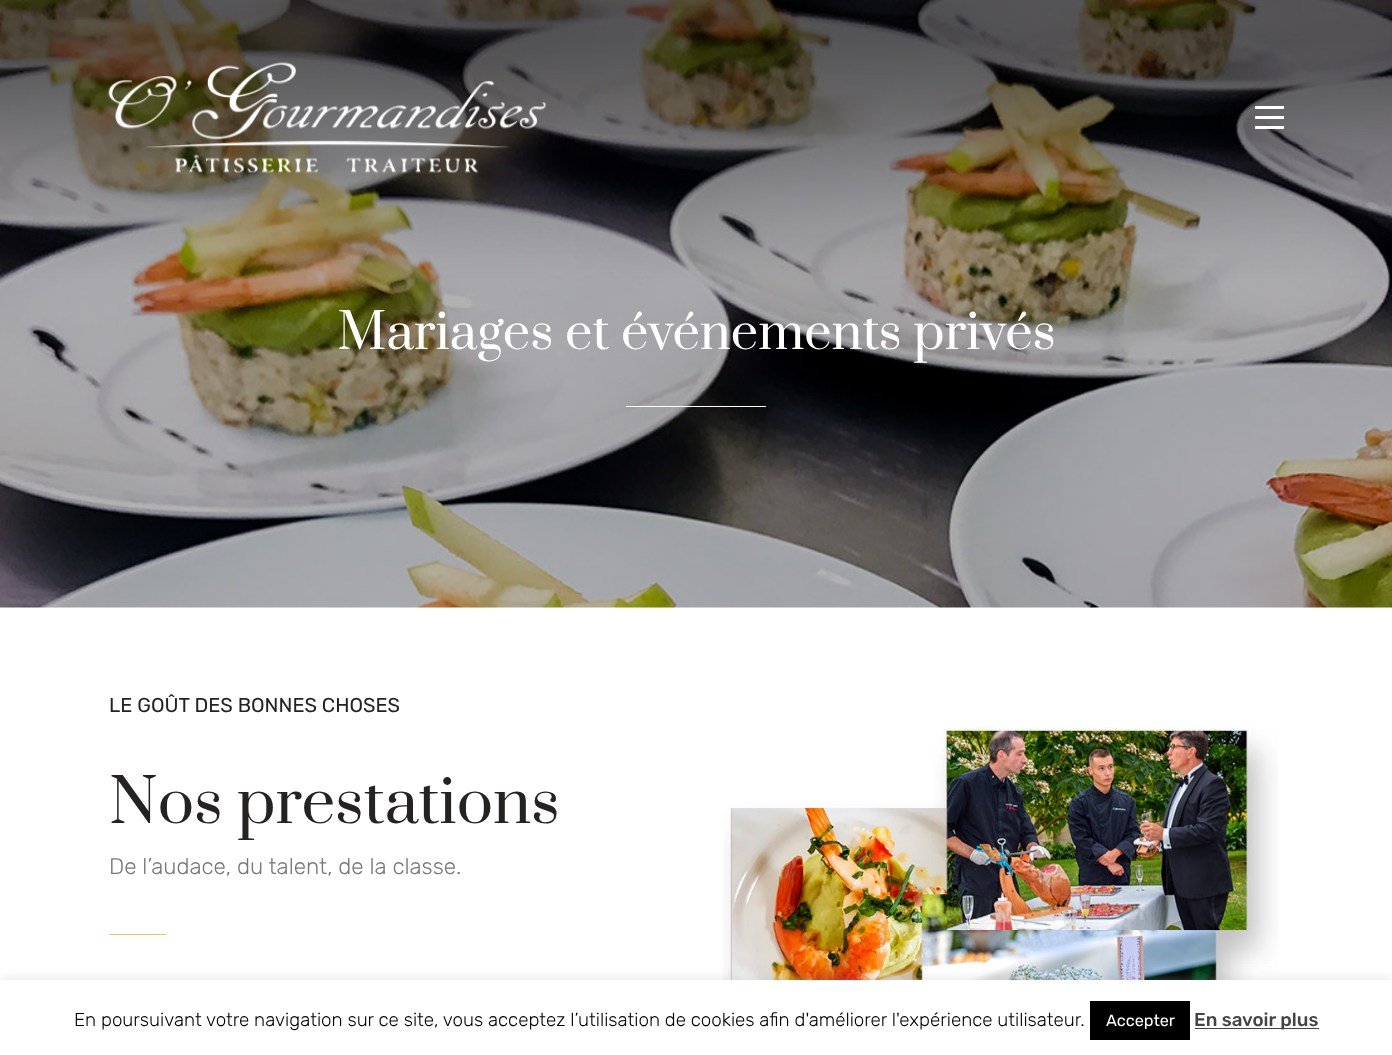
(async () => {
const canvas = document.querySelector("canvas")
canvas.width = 1392
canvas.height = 1055
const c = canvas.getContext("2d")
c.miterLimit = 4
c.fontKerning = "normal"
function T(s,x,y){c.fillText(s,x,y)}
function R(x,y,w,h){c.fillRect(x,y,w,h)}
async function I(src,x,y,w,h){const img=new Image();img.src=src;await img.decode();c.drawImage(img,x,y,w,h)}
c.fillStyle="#fff"
R(0,0,1392,1055)
await I("2.png",0,0,1392,608)
await I("1.png",108,62,439,111)
R(1255,106,29,3)
R(1255,116,29,3)
R(1255,126,29,3)
c.font="48.75px Prata"
T("Mariages et événements privés",337,349)
R(626,406,140,1)
c.font="20px Rubik"
c.fillStyle="#242321"
T("LE GOÛT DES BONNES CHOSES",109,712)
c.font="60px Prata"
T("Nos prestations",109,823)
c.font="300 22.5px Rubik"
c.fillStyle="#777"
T("De l’audace, du talent, de la classe.",109,874)
c.fillStyle="#f7be68"
R(109,934,57,1)
await I("3.png",723,727,555,253)
c.fillStyle="#acabab4d"
c.filter="blur(6px)"
c.beginPath()
c.rect(0,979,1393,75)
c.fill()
c.filter="none"
c.fillStyle="#fff"
R(0,980,1392,75)
c.font="300 18.75px Rubik"
c.fillStyle="#000"
T("En poursuivant votre navigation sur ce site, vous acceptez l’utilisation de cookies afin d'améliorer l'expérience utilisateur.",74,1026)
R(1090,1001,100,39)
c.font="16.25px Rubik"
c.fillStyle="#fff"
T("Accepter",1106,1026)
c.fillStyle="#444"
R(1195,1028,124,1)
c.font="500 18.75px Rubik"
T("En savoir plus",1194,1026)
})()
